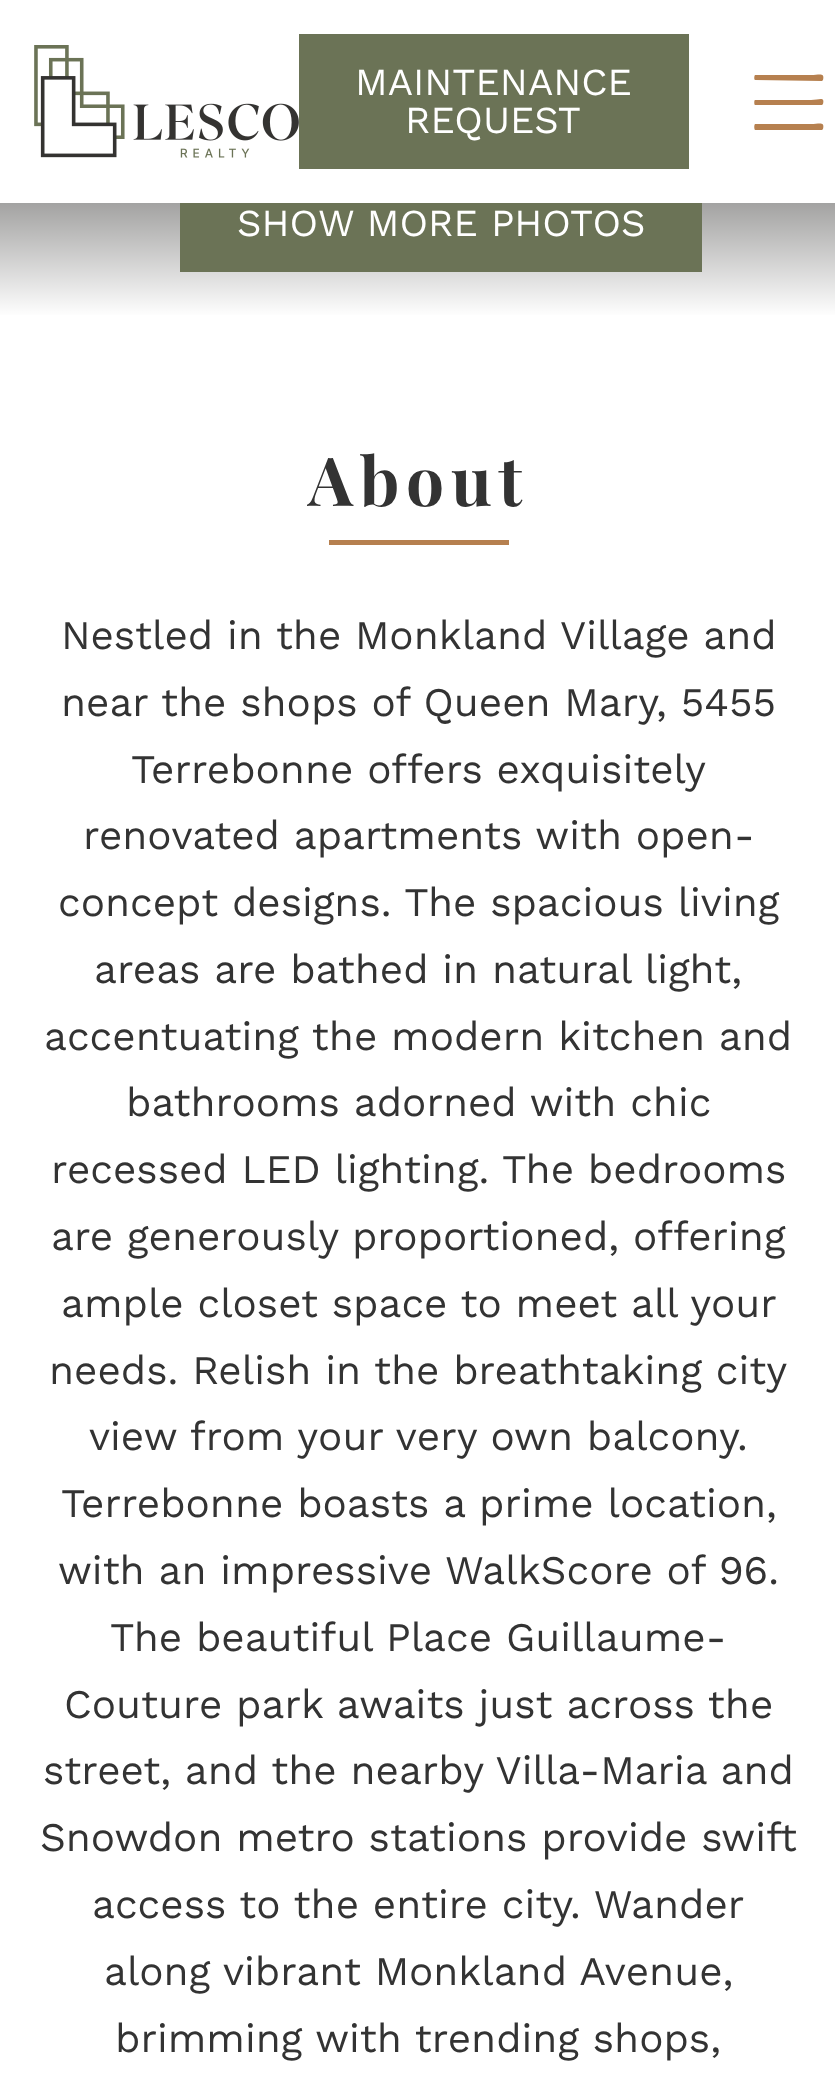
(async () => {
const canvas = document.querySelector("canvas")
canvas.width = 835
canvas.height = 2074
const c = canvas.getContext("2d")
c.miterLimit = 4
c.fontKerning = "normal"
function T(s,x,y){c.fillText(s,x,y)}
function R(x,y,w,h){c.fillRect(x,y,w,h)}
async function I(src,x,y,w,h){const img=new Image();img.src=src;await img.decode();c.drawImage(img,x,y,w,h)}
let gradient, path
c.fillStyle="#fff"
R(0,0,835,2074)
await I("1.png",34,45,265,113)
c.fillStyle="#6b7356"
R(299,34,390,135)
c.font="38.25px Work Sans"
c.fillStyle="#fff"
T("MAINTENANCE",355,95)
T("REQUEST",405,133)
c.fillStyle="#b6804f"
path = new Path2D("M822 81l-67-1c-1 0-1-4 0-5h56c8 0 14-3 12 5zm0 24h-67c-1 0-1-5 0-5h56c8 0 14-4 12 4zm0 25h-67c-1-1-1-5 0-6h56c8 0 14-3 12 5z")
c.fill(path)
c.fillStyle="#343331"
R(0,203,835,112)
gradient = c.createLinearGradient(419,108,419,340)
gradient.addColorStop(0,"#ffffff00")
gradient.addColorStop(.25,"#ffffff66")
gradient.addColorStop(.9,"#fff")
c.fillStyle = gradient
R(0,203,835,112)
c.fillStyle="#6b7356"
R(180,203,522,69)
c.fillStyle="#fff"
T("SHOW MORE PHOTOS",237,236)
c.letterSpacing="6.75px"
c.font="bold 67.5px Playfair Display"
c.fillStyle="#333"
T("About",308,506)
c.fillStyle="#b6804f"
R(329,540,180,5)
c.letterSpacing="0px"
c.font="40.5px Work Sans"
c.fillStyle="#333"
T("Nestled in the Monkland Village and",61,649)
T("near the shops of Queen Mary, 5455",61,716)
T("Terrebonne offers exquisitely",131,783)
T("renovated apartments with open-",83,849)
T("concept designs. The spacious living",58,916)
T("areas are bathed in natural light,",94,983)
T("accentuating the modern kitchen and",44,1050)
T("bathrooms adorned with chic",126,1116)
T("recessed LED lighting. The bedrooms",51,1183)
T("are generously proportioned, offering",51,1250)
T("ample closet space to meet all your",61,1317)
T("needs. Relish in the breathtaking city",49,1384)
T("view from your very own balcony.",89,1450)
T("Terrebonne boasts a prime location,",61,1517)
T("with an impressive WalkScore of 96.",58,1584)
T("The beautiful Place Guillaume-",110,1651)
T("Couture park awaits just across the",64,1718)
T("street, and the nearby Villa-Maria and",43,1784)
T("Snowdon metro stations provide swift",40,1851)
T("access to the entire city. Wander",92,1918)
T("along vibrant Monkland Avenue,",104,1985)
T("brimming with trending shops,",115,2052)
})()
